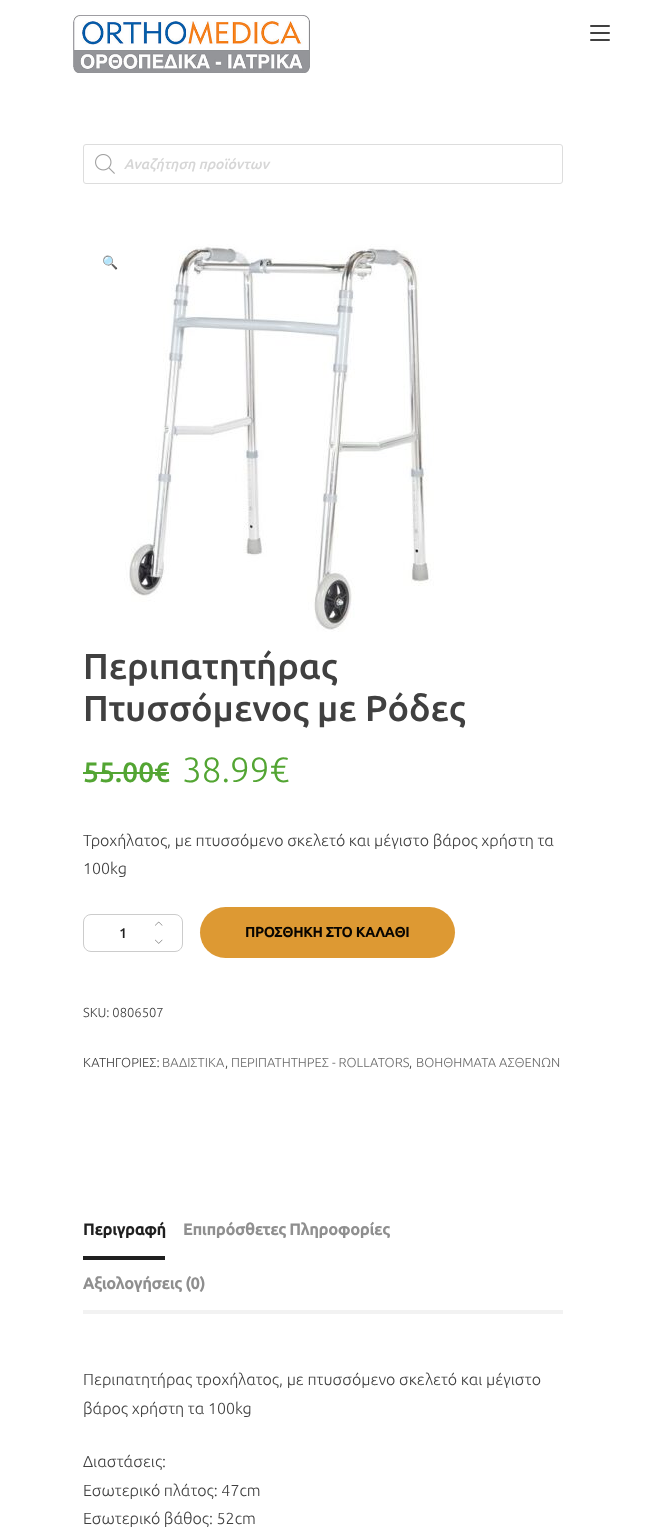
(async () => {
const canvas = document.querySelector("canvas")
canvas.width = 645
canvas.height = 1536
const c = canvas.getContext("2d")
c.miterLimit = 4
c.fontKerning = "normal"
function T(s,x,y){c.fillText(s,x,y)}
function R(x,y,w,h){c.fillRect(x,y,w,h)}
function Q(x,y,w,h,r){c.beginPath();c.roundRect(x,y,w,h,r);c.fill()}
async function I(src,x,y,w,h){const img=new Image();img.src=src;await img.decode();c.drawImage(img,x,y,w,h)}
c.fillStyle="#fff"
R(0,0,645,1536)
await I("1.png",73,15,237,58)
c.fillStyle="#404040"
Q(590,25,20,2,1)
Q(590,32,20,2,1)
Q(590,39,20,2,1)
c.beginPath()
c.roundRect(83.5,144.5,479,39,2.5)
c.strokeStyle="#ddd"
c.stroke()
await I("2.png",95,154,20,20)
c.font="italic 500 14px Ubuntu"
c.fillStyle="#d6d6d6"
T("Αναζήτηση προϊόντων",124,169)
c.font="13px Noto Color Emoji"
c.fillStyle="#6b6b6b"
T("🔍",102,267)
await I("3.png",124,244,310,388)
c.font="500 36px Ubuntu"
c.fillStyle="#404040"
T("Περιπατητήρας",83,679)
T("Πτυσσόμενος με Ρόδες",83,721)
c.font="500 28px Ubuntu"
c.fillStyle="#53a533"
T("55.00€",83,782)
R(83,772,86,2)
c.font="300 35px Ubuntu"
T("38.99€",182,782)
c.font="300 16px Ubuntu"
c.fillStyle="#404040"
T("Τροχήλατος, με πτυσσόμενο σκελετό και μέγιστο βάρος χρήστη τα",83,846)
T("100kg",83,874)
c.beginPath()
c.roundRect(83.5,914.5,99,37,7.5)
c.strokeStyle="#ccc"
c.stroke()
c.font="500 14px Ubuntu"
c.fillStyle="#1f1f1f"
T("1",119,938)
await I("4.png",155,921,8,5)
await I("5.png",155,939,8,5)
c.fillStyle="#d93"
Q(200,907,255,51,25.5)
c.font="bold 14px Ubuntu"
c.fillStyle="#080501"
T("ΠΡΟΣΘΗΚΗ ΣΤΟ ΚΑΛΑΘΙ",245,937)
c.font="300 13px Ubuntu"
c.fillStyle="#404040"
T("SKU: 0806507",83,1017)
T("ΚΑΤΗΓΟΡΙΕΣ:",83,1067)
c.fillStyle="#6b6b6b"
T("ΒΑΔΙΣΤΙΚΑ",162,1067)
c.fillStyle="#404040"
T(",",225,1067)
c.fillStyle="#6b6b6b"
T("ΠΕΡΙΠΑΤΗΤΗΡΕΣ - ROLLATORS",231,1067)
c.fillStyle="#404040"
T(",",409,1067)
c.fillStyle="#6b6b6b"
T("ΒΟΗΘΗΜΑΤΑ ΑΣΘΕΝΩΝ",416,1067)
c.fillStyle="#f2f2f2"
R(83,1310,480,4)
c.fillStyle="#1f1f1f"
R(83,1256,82,4)
c.font="bold 16px Ubuntu"
T("Περιγραφή",83,1235)
c.fillStyle="#8f8f8f"
T("Επιπρόσθετες Πληροφορίες",183,1235)
T("Αξιολογήσεις (0)",83,1289)
c.font="300 16px Ubuntu"
c.fillStyle="#404040"
T("Περιπατητήρας τροχήλατος, με πτυσσόμενο σκελετό και μέγιστο",83,1385)
T("βάρος χρήστη τα 100kg",83,1414)
T("Διαστάσεις:",83,1467)
T("Εσωτερικό πλάτος: 47cm",83,1496)
T("Εσωτερικό βάθος: 52cm",83,1524)
})()
